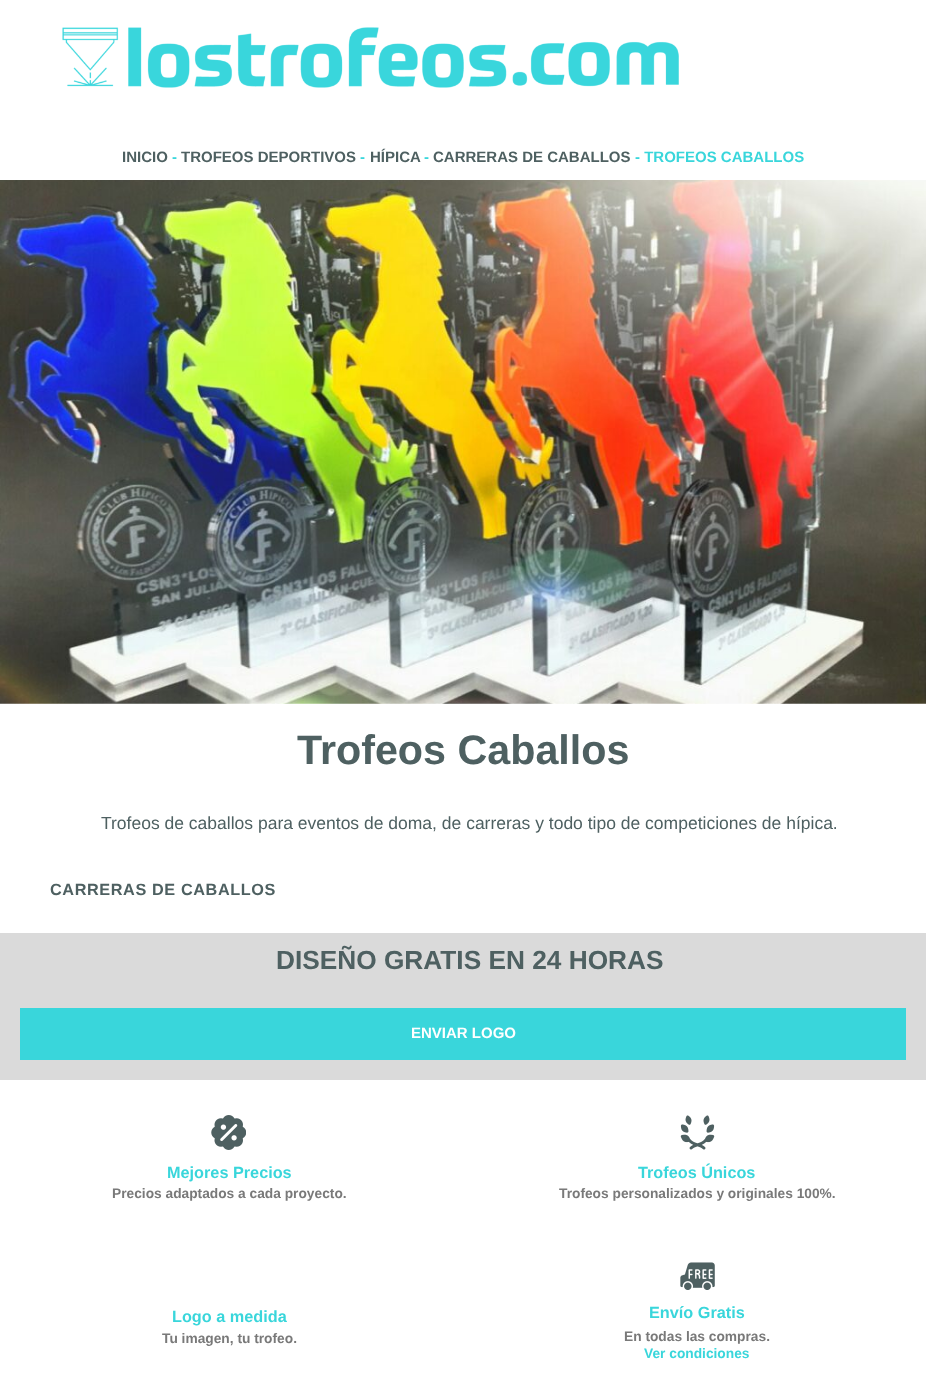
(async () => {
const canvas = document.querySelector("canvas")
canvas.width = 926
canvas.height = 1379
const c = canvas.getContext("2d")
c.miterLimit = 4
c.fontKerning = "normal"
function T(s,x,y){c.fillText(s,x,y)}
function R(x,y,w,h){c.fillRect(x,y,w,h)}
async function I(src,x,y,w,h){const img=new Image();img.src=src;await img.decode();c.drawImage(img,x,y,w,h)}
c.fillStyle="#fff"
R(0,0,926,1379)
await I("1.png",62,27,617,61)
c.font="bold 15px Liberation Sans"
c.fillStyle="#4e6061"
T("INICIO",122,162)
c.fillStyle="#39d6db"
T("-",172,162)
c.fillStyle="#4e6061"
T("TROFEOS DEPORTIVOS",181,162)
c.fillStyle="#39d6db"
T("-",360,162)
c.fillStyle="#4e6061"
T("HÍPICA",370,162)
c.fillStyle="#39d6db"
T("-",424,162)
c.fillStyle="#4e6061"
T("CARRERAS DE CABALLOS",433,162)
c.fillStyle="#39d6db"
T("- TROFEOS CABALLOS",635,162)
await I("2.png",0,180,926,524)
c.font="bold 41.25px Liberation Sans"
c.fillStyle="#4e6061"
T("Trofeos Caballos",297,764)
c.font="17.5px Liberation Sans"
T("Trofeos de caballos para eventos de doma, de carreras y todo tipo de competiciones de hípica.",101,829)
c.letterSpacing="0.6px"
c.font="bold 16.25px Liberation Sans"
T("CARRERAS DE CABALLOS",50,895)
c.fillStyle="#dadada"
R(0,933,926,147)
c.letterSpacing="0px"
c.font="bold 26.25px Liberation Sans"
c.fillStyle="#4e6061"
T("DISEÑO GRATIS EN 24 HORAS",276,969)
c.fillStyle="#39d6db"
R(20,1008,886,52)
c.font="bold 15px Liberation Sans"
c.fillStyle="#fff"
T("ENVIAR LOGO",411,1038)
await I("3.png",211,1115,35,35)
c.font="bold 16.25px Liberation Sans"
c.fillStyle="#39d6db"
T("Mejores Precios",167,1178)
c.font="bold 13.75px Liberation Sans"
c.fillStyle="#797979"
T("Precios adaptados a cada proyecto.",112,1198)
await I("4.png",680,1115,35,35)
c.font="bold 16.25px Liberation Sans"
c.fillStyle="#39d6db"
T("Trofeos Únicos",638,1178)
c.font="bold 13.75px Liberation Sans"
c.fillStyle="#797979"
T("Trofeos personalizados y originales 100%.",559,1198)
c.font="bold 16.25px Liberation Sans"
c.fillStyle="#39d6db"
T("Logo a medida",172,1322)
c.font="bold 13.75px Liberation Sans"
c.fillStyle="#797979"
T("Tu imagen, tu trofeo.",162,1343)
await I("5.png",680,1262,35,28)
c.font="bold 16.25px Liberation Sans"
c.fillStyle="#39d6db"
T("Envío Gratis",649,1318)
c.font="bold 13.75px Liberation Sans"
c.fillStyle="#797979"
T("En todas las compras.",624,1341)
c.fillStyle="#39d6db"
T("Ver condiciones",644,1358)
})()
